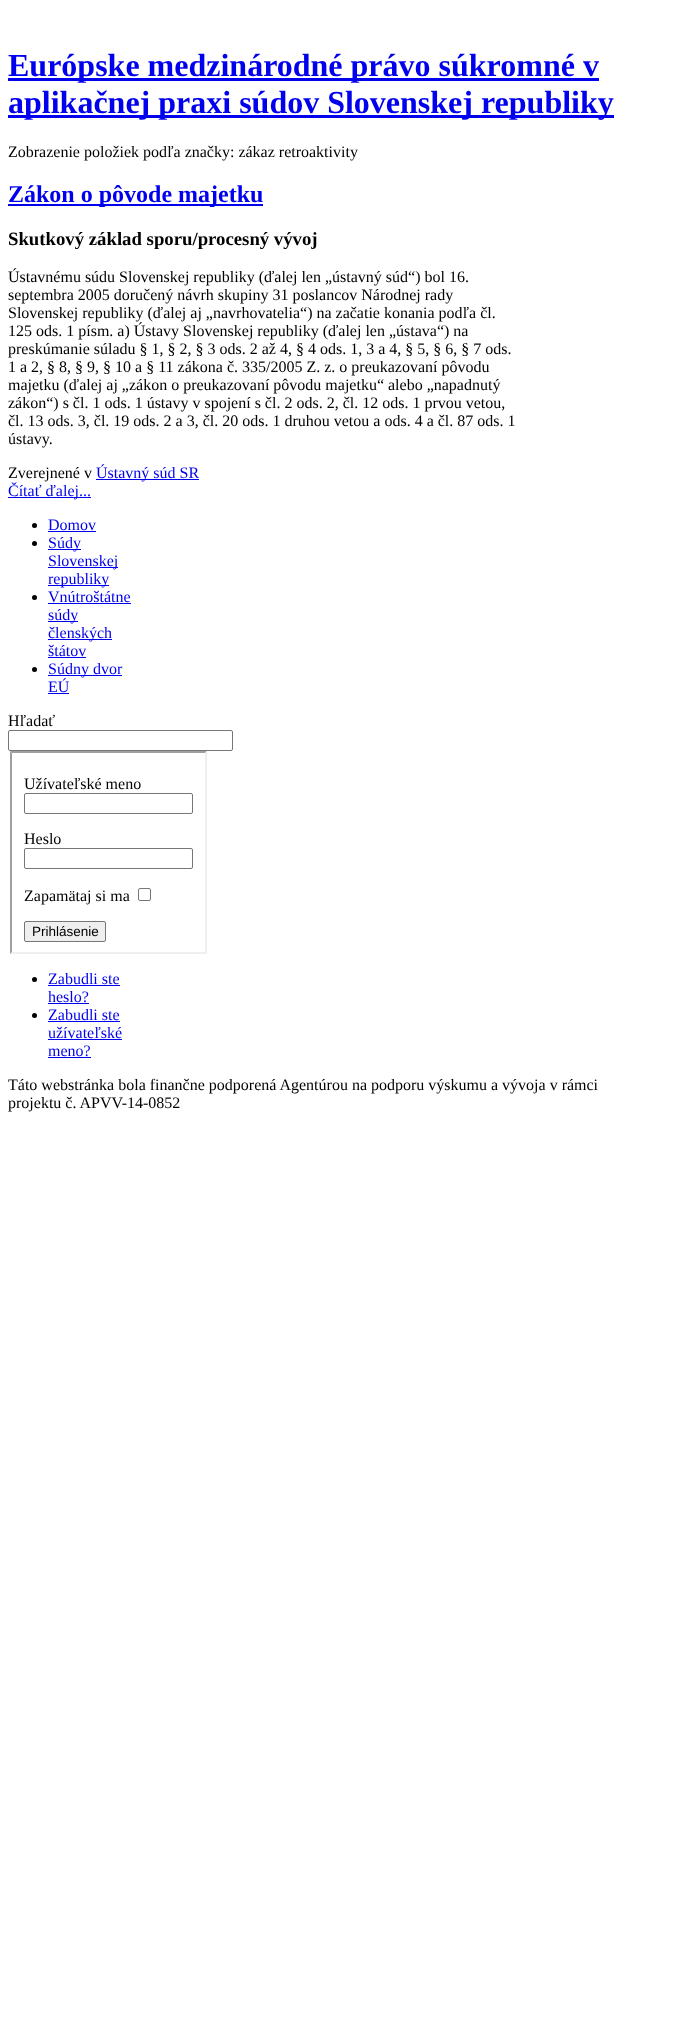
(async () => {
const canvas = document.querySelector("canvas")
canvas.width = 690
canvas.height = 2025
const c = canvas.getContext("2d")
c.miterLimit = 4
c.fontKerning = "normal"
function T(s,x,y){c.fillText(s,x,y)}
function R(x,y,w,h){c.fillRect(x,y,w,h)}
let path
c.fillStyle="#fff"
R(0,0,690,2025)
c.fillStyle="#00e"
R(8,78,591,3)
c.font="bold 32px Liberation Serif"
T("Európske medzinárodné právo súkromné v",8,76)
R(8,115,606,3)
T("aplikačnej praxi súdov Slovenskej republiky",8,113)
c.font="16px Liberation Serif"
c.fillStyle="#000"
T("Zobrazenie položiek podľa značky: zákaz retroaktivity",8,157)
c.fillStyle="#00e"
R(8,204,255,2)
c.font="bold 24px Liberation Serif"
T("Zákon o pôvode majetku",8,202)
c.font="bold 18.75px Liberation Serif"
c.fillStyle="#000"
T("Skutkový základ sporu/procesný vývoj",8,245)
c.font="16px Liberation Serif"
T("Ústavnému súdu Slovenskej republiky (ďalej len „ústavný súd“) bol 16.",8,282)
T("septembra 2005 doručený návrh skupiny 31 poslancov Národnej rady",8,300)
T("Slovenskej republiky (ďalej aj „navrhovatelia“) na začatie konania podľa čl.",8,318)
T("125 ods. 1 písm. a) Ústavy Slovenskej republiky (ďalej len „ústava“) na",8,336)
T("preskúmanie súladu § 1, § 2, § 3 ods. 2 až 4, § 4 ods. 1, 3 a 4, § 5, § 6, § 7 ods.",8,354)
T("1 a 2, § 8, § 9, § 10 a § 11 zákona č. 335/2005 Z. z. o preukazovaní pôvodu",8,372)
T("majetku (ďalej aj „zákon o preukazovaní pôvodu majetku“ alebo „napadnutý",8,390)
T("zákon“) s čl. 1 ods. 1 ústavy v spojení s čl. 2 ods. 2, čl. 12 ods. 1 prvou vetou,",8,408)
T("čl. 13 ods. 3, čl. 19 ods. 2 a 3, čl. 20 ods. 1 druhou vetou a ods. 4 a čl. 87 ods. 1",8,426)
T("ústavy.",8,444)
T("Zverejnené v",8,478)
c.fillStyle="#00e"
R(96,479,103,1)
T("Ústavný súd SR",96,478)
R(8,497,83,1)
T("Čítať ďalej...",8,496)
c.fillStyle="#000"
c.beginPath()
c.arc(34.5,525.5,2.5,0,7)
c.fill()
c.fillStyle="#00e"
T("Domov",48,530)
R(48,531,48,1)
c.fillStyle="#000"
c.beginPath()
c.arc(34.5,543.5,2.5,0,7)
c.fill()
c.fillStyle="#00e"
R(48,549,33,1)
T("Súdy",48,548)
R(48,567,70,1)
T("Slovenskej",48,566)
R(48,585,61,1)
T("republiky",48,584)
c.fillStyle="#000"
c.beginPath()
c.arc(34.5,597.5,2.5,0,7)
c.fill()
c.fillStyle="#00e"
T("Vnútroštátne",48,602)
R(48,603,83,1)
R(48,621,30,1)
T("súdy",48,620)
R(48,639,64,1)
T("členských",48,638)
T("štátov",48,656)
R(48,657,38,1)
c.fillStyle="#000"
c.beginPath()
c.arc(34.5,669.5,2.5,0,7)
c.fill()
c.fillStyle="#00e"
R(48,675,74,1)
T("Súdny dvor",48,674)
T("EÚ",48,692)
R(48,693,21,1)
c.fillStyle="#000"
T("Hľadať",8,726)
c.beginPath()
c.roundRect(8.5,730.5,224,20,1.5)
c.strokeStyle="#767676"
c.stroke()
c.fillStyle="#9f9f9f"
path = new Path2D("M10 751h197l-2 2h-193z")
c.fill(path)
c.fillStyle="#efefef"
path = new Path2D("M207 751v203l-2-2v-199z")
c.fill(path)
path = new Path2D("M207 954h-197l2-2h193z")
c.fill(path)
c.fillStyle="#9f9f9f"
path = new Path2D("M10 954v-203l2 2v199z")
c.fill(path)
c.fillStyle="#000"
T("Užívateľské meno",24,789)
c.beginPath()
c.roundRect(24.5,793.5,168,20,1.5)
c.stroke()
T("Heslo",24,844)
c.beginPath()
c.roundRect(24.5,848.5,168,20,1.5)
c.stroke()
T("Zapamätaj si ma",24,901)
c.beginPath()
c.roundRect(138.5,888.5,12,12,1.5)
c.stroke()
c.fillStyle="#efefef"
c.beginPath()
c.roundRect(24.5,921.5,81,20,1.5)
c.fill()
c.stroke()
c.font="13.5px Liberation Sans"
c.fillStyle="#000"
T("Prihlásenie",32,936)
c.beginPath()
c.arc(34.5,979.5,2.5,0,7)
c.fill()
c.font="16px Liberation Serif"
c.fillStyle="#00e"
T("Zabudli ste",48,984)
R(48,985,72,1)
T("heslo?",48,1002)
R(48,1003,41,1)
c.fillStyle="#000"
c.beginPath()
c.arc(34.5,1015.5,2.5,0,7)
c.fill()
c.fillStyle="#00e"
T("Zabudli ste",48,1020)
R(48,1021,72,1)
T("užívateľské",48,1038)
R(48,1039,74,1)
T("meno?",48,1056)
R(48,1057,43,1)
c.fillStyle="#000"
T("Táto webstránka bola finančne podporená Agentúrou na podporu výskumu a vývoja v rámci",8,1090)
T("projektu č. APVV-14-0852",8,1108)
})()
